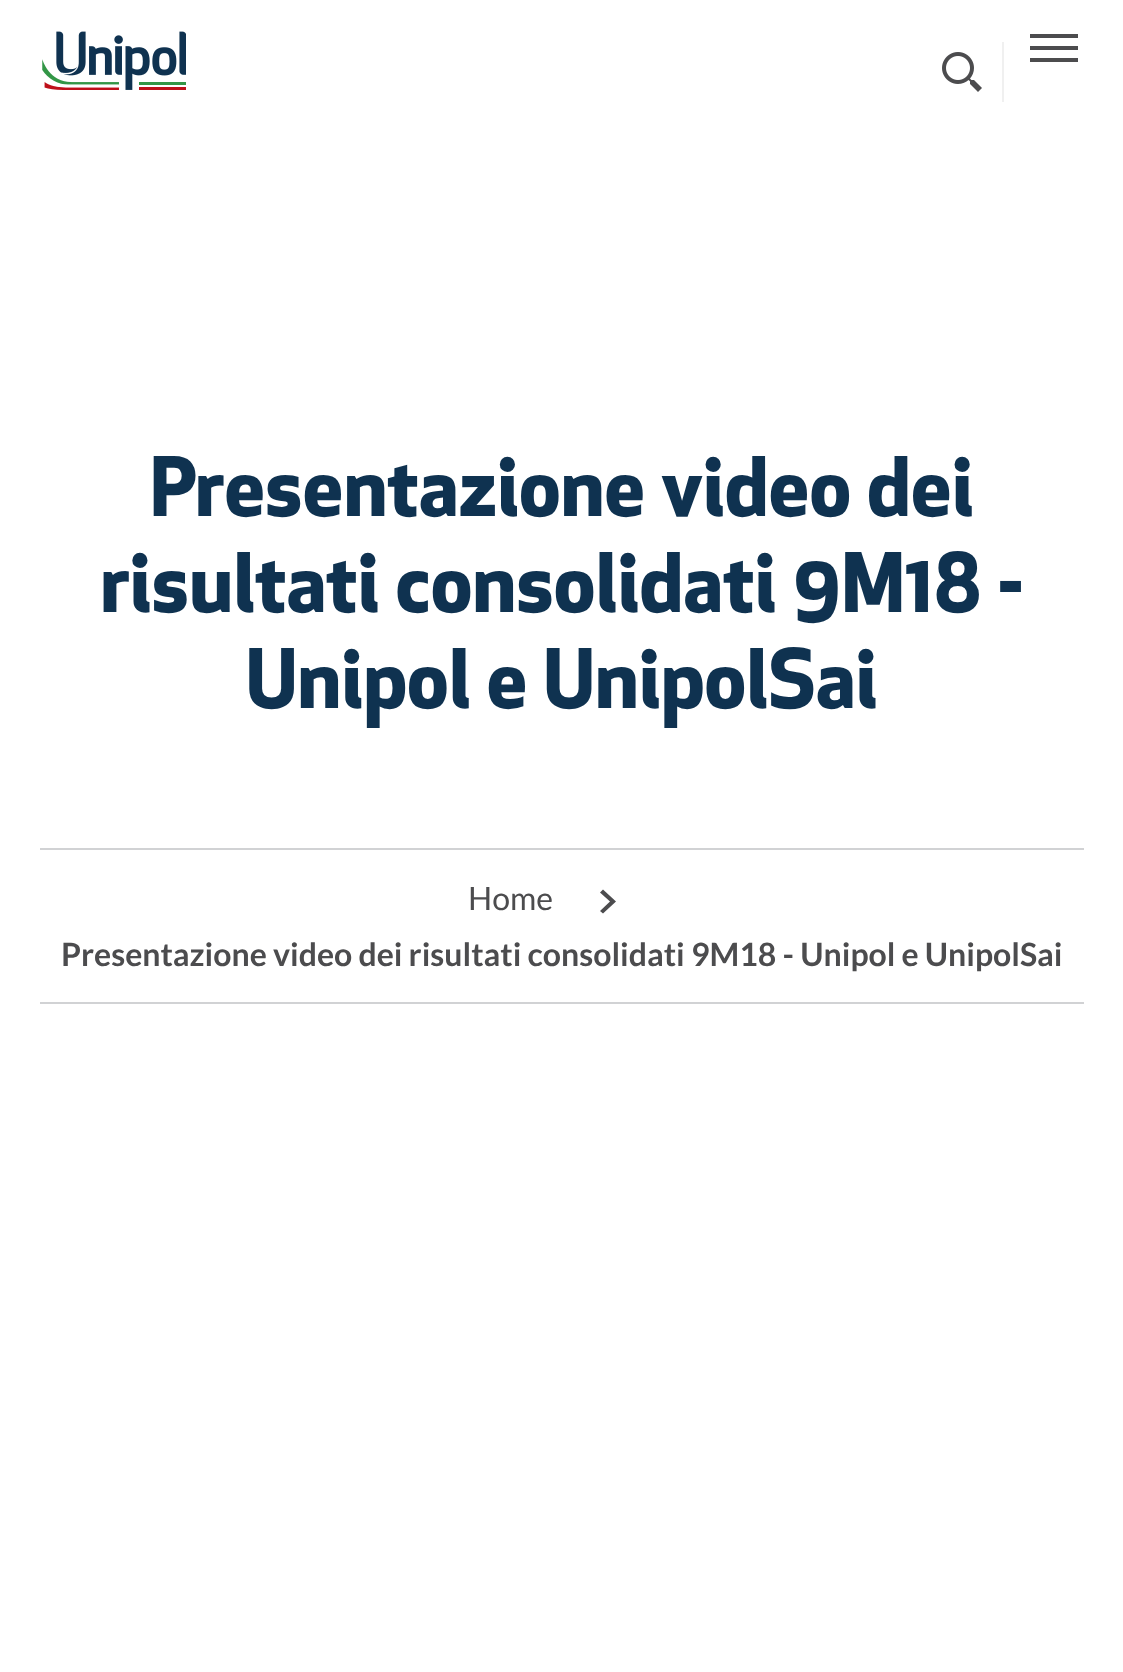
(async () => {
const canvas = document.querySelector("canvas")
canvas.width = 1123
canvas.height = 1672
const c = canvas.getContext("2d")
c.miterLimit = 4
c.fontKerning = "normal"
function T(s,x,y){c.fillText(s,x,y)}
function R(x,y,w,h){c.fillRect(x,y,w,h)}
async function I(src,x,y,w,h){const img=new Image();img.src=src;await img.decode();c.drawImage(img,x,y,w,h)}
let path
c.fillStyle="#fff"
R(0,0,1123,1672)
await I("1.png",42,31,144,59)
c.fillStyle="#f0f0f0"
R(1002,42,2,60)
await I("2.png",942,52,40,40)
c.fillStyle="#4c4c4e"
R(1030,34,48,4)
R(1030,46,48,4)
R(1030,58,48,4)
c.font="bold 80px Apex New"
c.fillStyle="#0f3250"
T("Presentazione video dei",150,516)
T("risultati consolidati 9M18 -",100,612)
T("Unipol e UnipolSai",246,708)
c.fillStyle="#d1d2d4"
R(40,848,1044,2)
R(40,1002,1044,2)
c.font="32px Lato"
c.fillStyle="#4c4c4e"
T("Home",468,910)
path = new Path2D("M600 911l3 2.5l13-12l-13-12l-3 3l10 9z")
c.fill(path)
c.font="bold 32px Lato"
T("Presentazione video dei risultati consolidati 9M18 - Unipol e UnipolSai",61,966)
})()
